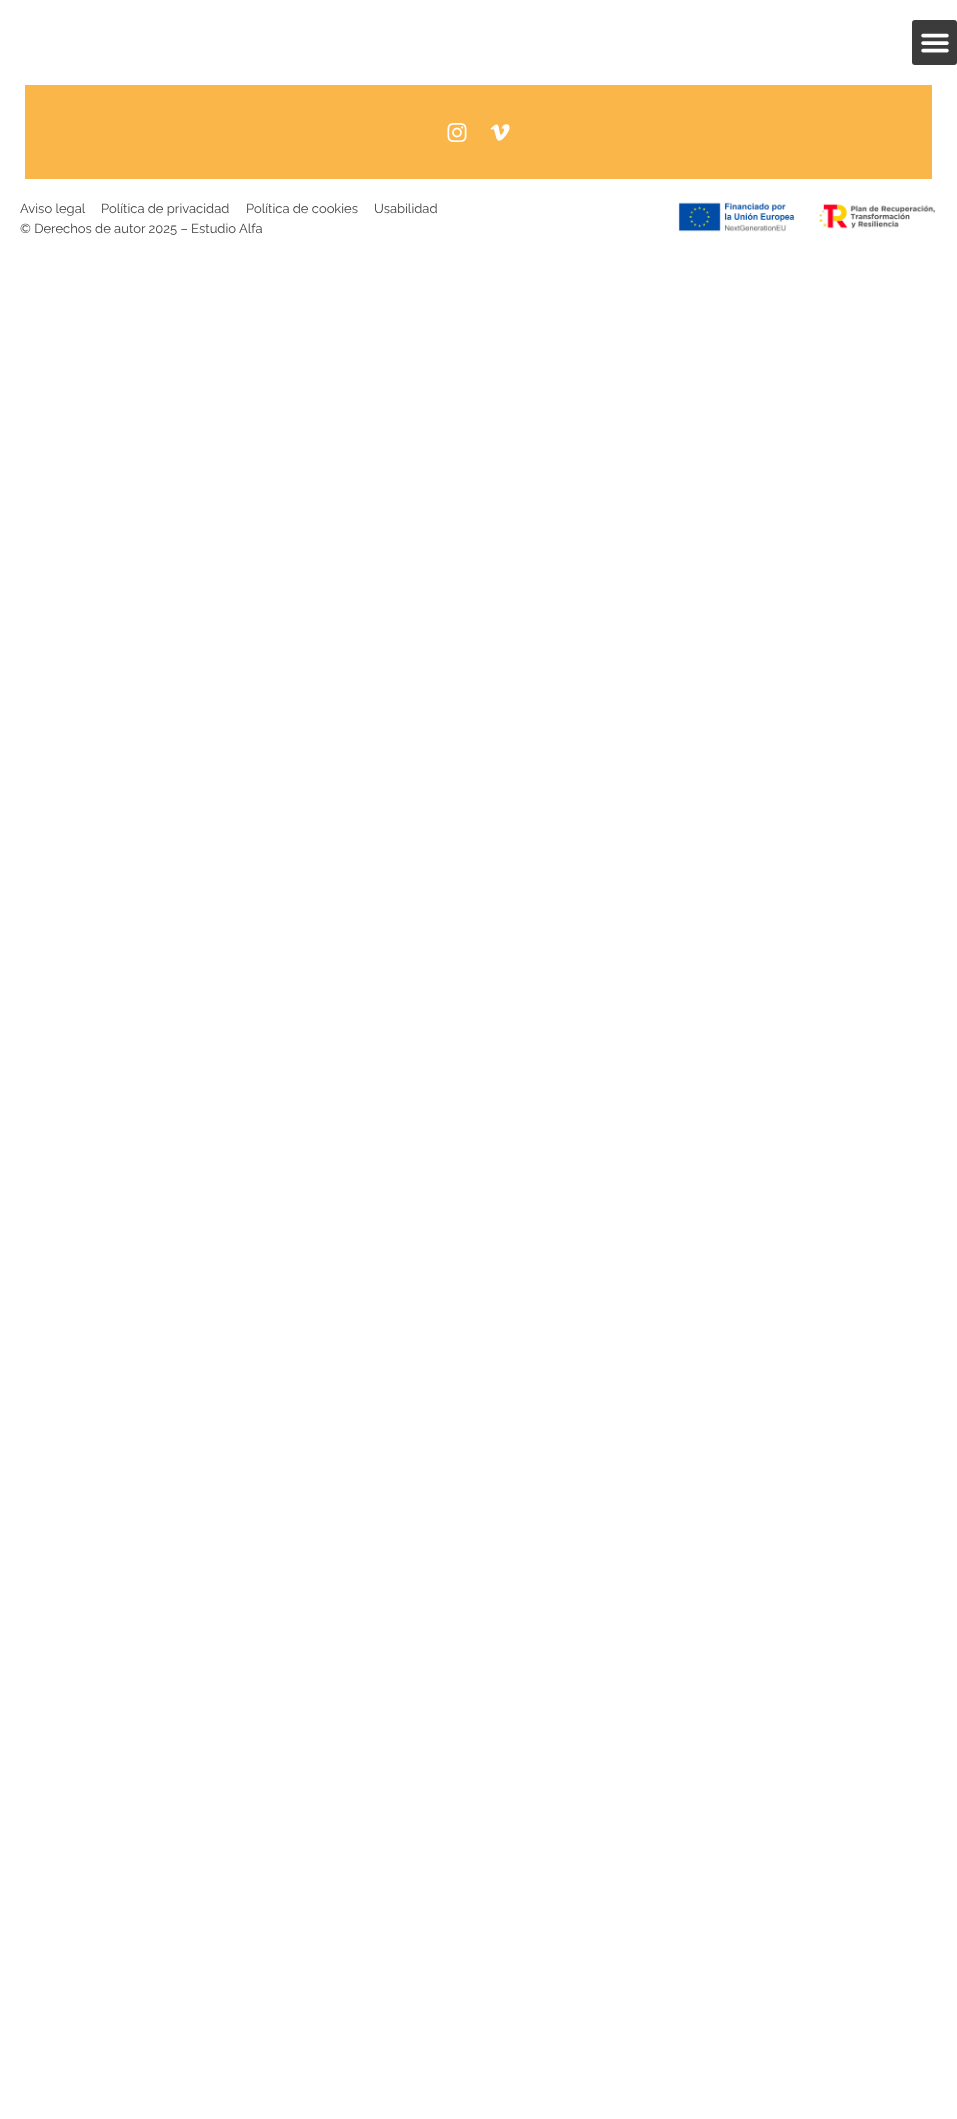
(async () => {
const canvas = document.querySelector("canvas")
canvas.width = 957
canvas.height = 2119
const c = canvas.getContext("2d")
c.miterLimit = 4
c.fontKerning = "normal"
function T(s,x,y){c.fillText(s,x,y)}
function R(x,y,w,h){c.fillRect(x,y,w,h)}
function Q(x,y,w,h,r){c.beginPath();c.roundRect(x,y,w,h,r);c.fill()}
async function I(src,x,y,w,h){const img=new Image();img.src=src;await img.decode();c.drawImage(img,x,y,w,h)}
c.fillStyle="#fff"
R(0,0,957,2119)
c.fillStyle="#3b3b3b"
Q(912,20,45,45,3)
await I("1.png",921,33,28,20)
c.fillStyle="#fbb64a"
R(25,85,907,94)
await I("2.png",447,123,20,19)
await I("3.png",490,124,20,17)
c.font="13px Raleway"
c.fillStyle="#3f3f3f"
T("Aviso legal",20,213)
T("Política de privacidad",101,213)
T("Política de cookies",246,213)
T("Usabilidad",374,213)
T("© Derechos de autor 2025 – Estudio Alfa",20,233)
await I("4.png",678,202,117,30)
await I("5.png",819,203,117,26)
})()
